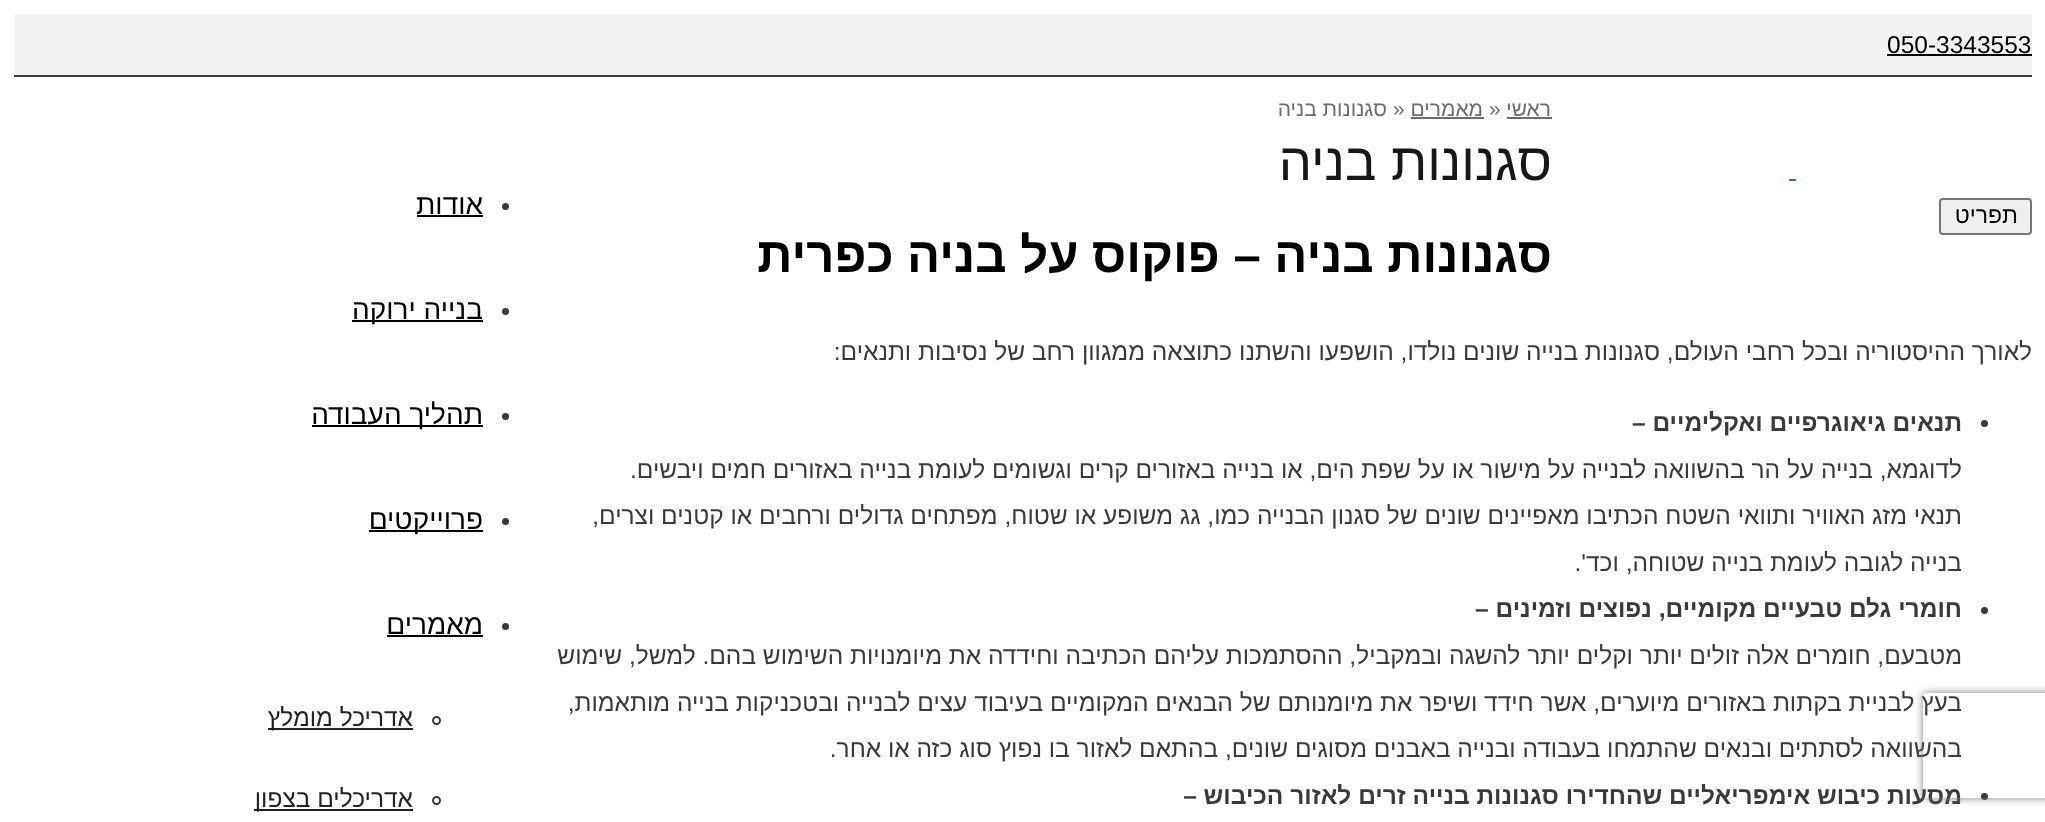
(async () => {
const canvas = document.querySelector("canvas")
canvas.width = 2045
canvas.height = 822
const c = canvas.getContext("2d")
c.miterLimit = 4
c.fontKerning = "normal"
function T(s,x,y){c.fillText(s,x,y)}
function R(x,y,w,h){c.fillRect(x,y,w,h)}
let path
c.fillStyle="#fff"
R(0,0,2045,822)
c.fillStyle="#f2f2f2"
R(14,14,2018,61)
c.font="24.5px Liberation Sans"
c.fillStyle="#000"
T("050-3343553",1887,53)
R(1887,54,145,2)
c.direction="rtl"
c.font="21px Liberation Sans"
c.fillStyle="#6c6c6c"
T("ראשי",1551,116)
R(1507,117,45,2)
c.direction="ltr"
T("»",1489,116)
c.direction="rtl"
T("מאמרים",1483,116)
R(1411,117,73,2)
c.direction="ltr"
T("»",1393,116)
c.direction="rtl"
T("סגנונות בניה",1387,116)
c.font="52.5px Liberation Sans"
c.fillStyle="#171717"
T("סגנונות בניה",1552,180)
c.font="bold 49px Liberation Sans"
c.fillStyle="#000"
T("סגנונות בניה – פוקוס על בניה כפרית",1552,272)
c.font="24.5px Liberation Sans"
c.fillStyle="#3a3a3a"
T("לאורך ההיסטוריה ובכל רחבי העולם, סגנונות בנייה שונים נולדו, הושפעו והשתנו כתוצאה ממגוון רחב של נסיבות ותנאים:",2032,360)
c.beginPath()
c.arc(1984.5,423.5,3.5,0,7)
c.fill()
c.font="bold 24.5px Liberation Sans"
T("תנאים גיאוגרפיים ואקלימיים –",1962,431)
c.font="24.5px Liberation Sans"
T("לדוגמא, בנייה על הר בהשוואה לבנייה על מישור או על שפת הים, או בנייה באזורים קרים וגשומים לעומת בנייה באזורים חמים ויבשים.",1962,478)
T("תנאי מזג האוויר ותוואי השטח הכתיבו מאפיינים שונים של סגנון הבנייה כמו, גג משופע או שטוח, מפתחים גדולים ורחבים או קטנים וצרים,",1962,524)
T("בנייה לגובה לעומת בנייה שטוחה, וכד'.",1962,571)
c.beginPath()
c.arc(1984.5,610.5,3.5,0,7)
c.fill()
c.font="bold 24.5px Liberation Sans"
T("חומרי גלם טבעיים מקומיים, נפוצים וזמינים –",1962,617)
c.font="24.5px Liberation Sans"
T("מטבעם, חומרים אלה זולים יותר וקלים יותר להשגה ובמקביל, ההסתמכות עליהם הכתיבה וחידדה את מיומנויות השימוש בהם. למשל, שימוש",1962,664)
T("בעץ לבניית בקתות באזורים מיוערים, אשר חידד ושיפר את מיומנותם של הבנאים המקומיים בעיבוד עצים לבנייה ובטכניקות בנייה מותאמות,",1962,711)
T("בהשוואה לסתתים ובנאים שהתמחו בעבודה ובנייה באבנים מסוגים שונים, בהתאם לאזור בו נפוץ סוג כזה או אחר.",1962,757)
c.beginPath()
c.arc(1984.5,796.5,3.5,0,7)
c.fill()
c.font="bold 24.5px Liberation Sans"
T("מסעות כיבוש אימפריאליים שהחדירו סגנונות בנייה זרים לאזור הכיבוש –",1962,804)
R(14,75,2018,2)
c.fillStyle="#1e73be"
R(1789,179,7,2)
c.fillStyle="#efefef"
c.beginPath()
c.roundRect(1940,199,91,35,3)
c.fill()
c.strokeStyle="#767676"
c.lineWidth=2
c.stroke()
c.font="23px Liberation Sans"
c.fillStyle="#000"
T("תפריט",2018,223)
c.fillStyle="#3a3a3a"
c.beginPath()
c.arc(505.5,206.5,3.5,0,7)
c.fill()
c.font="28px Liberation Sans"
c.fillStyle="#000"
T("אודות",483,214)
R(417,215,66,2)
c.fillStyle="#3a3a3a"
c.beginPath()
c.arc(505.5,311.5,3.5,0,7)
c.fill()
c.fillStyle="#000"
R(352,320,131,2)
T("בנייה ירוקה",483,319)
c.fillStyle="#3a3a3a"
c.beginPath()
c.arc(505.5,416.5,3.5,0,7)
c.fill()
c.fillStyle="#000"
R(312,425,171,2)
T("תהליך העבודה",483,424)
c.fillStyle="#3a3a3a"
c.beginPath()
c.arc(505.5,521.5,3.5,0,7)
c.fill()
c.fillStyle="#000"
R(369,530,114,2)
T("פרוייקטים",483,529)
c.fillStyle="#3a3a3a"
c.beginPath()
c.arc(505.5,626.5,3.5,0,7)
c.fill()
c.fillStyle="#000"
T("מאמרים",483,634)
R(387,635,96,2)
c.beginPath()
c.arc(436.5,720.5,3.5,0,7)
c.strokeStyle="#3a3a3a"
c.stroke()
c.fillStyle="#232323"
R(268,728,145,2)
c.font="24.5px Liberation Sans"
T("אדריכל מומלץ",413,726)
c.beginPath()
c.arc(436.5,800.5,3.5,0,7)
c.stroke()
R(254,809,159,2)
T("אדריכלים בצפון",413,807)
c.save()
path = new Path2D("M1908 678h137v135h-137zm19 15h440c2 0 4 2 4 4v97c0 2-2 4-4 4h-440c-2 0-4-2-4-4v-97c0-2 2-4 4-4z")
c.clip(path,"evenodd")
c.fillStyle="#808080"
c.filter="blur(4.5px)"
c.beginPath()
c.roundRect(1923,693,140,105,4)
c.fill()
c.filter="none"
c.restore()
})()
